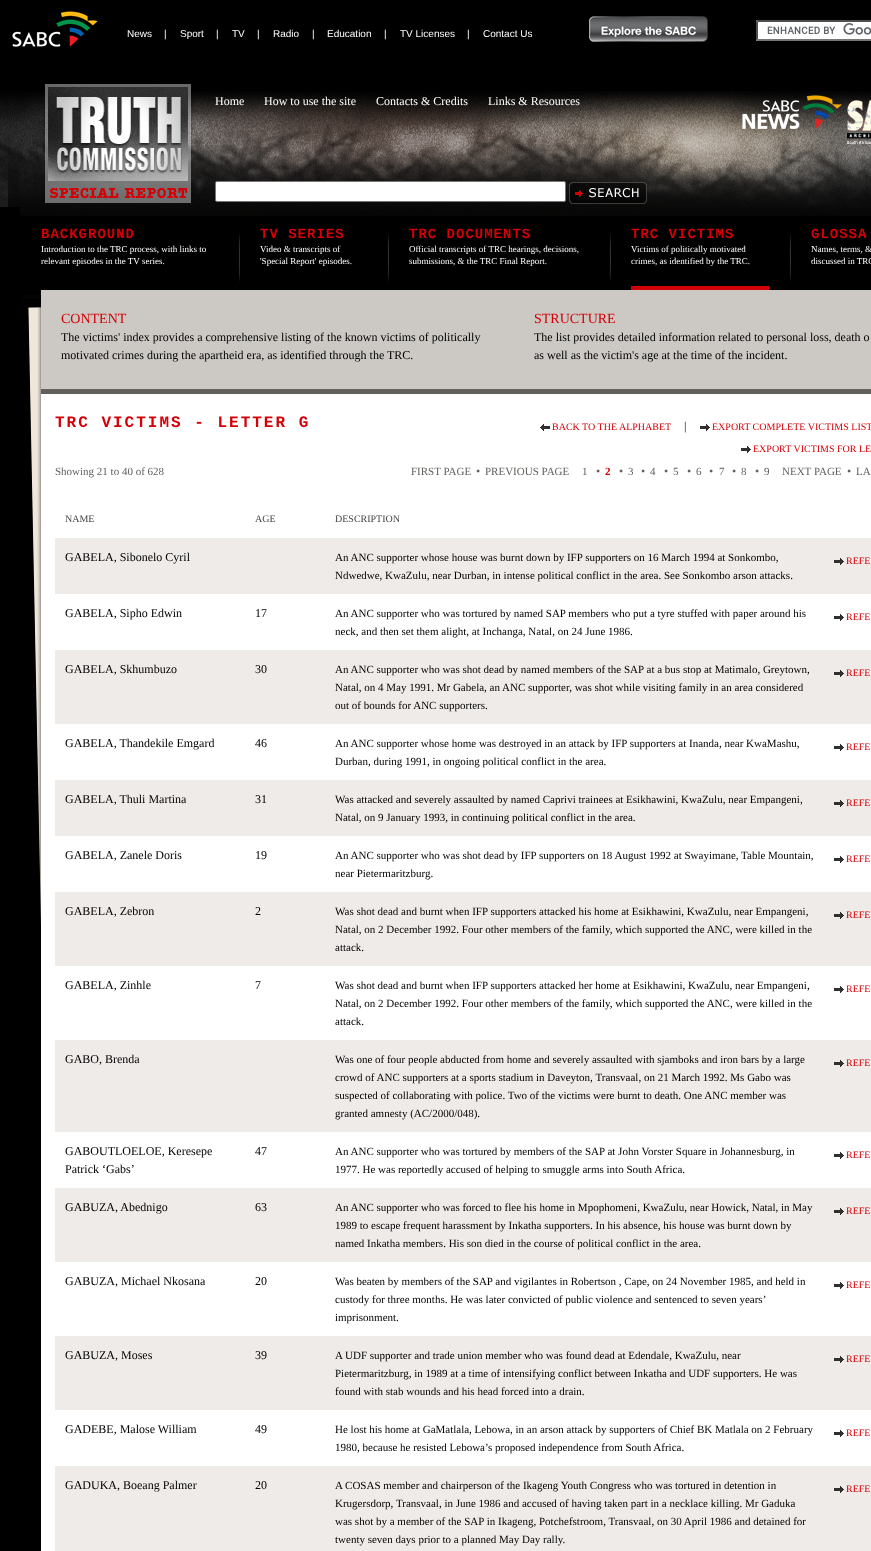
(async () => {
const canvas = document.querySelector("canvas")
canvas.width = 871
canvas.height = 1551
const c = canvas.getContext("2d")
c.miterLimit = 4
c.fontKerning = "normal"
function T(s,x,y){c.fillText(s,x,y)}
function R(x,y,w,h){c.fillRect(x,y,w,h)}
async function I(src,x,y,w,h){const img=new Image();img.src=src;await img.decode();c.drawImage(img,x,y,w,h)}
let path
c.fillStyle="#000"
R(0,0,871,1551)
await I("1.png",12,11,86,36)
c.font="10px Liberation Sans"
c.fillStyle="#fff"
T("News",127,37)
T("|",164,37)
T("Sport",180,37)
T("|",216,37)
T("TV",232,37)
T("|",257,37)
T("Radio",273,37)
T("|",312,37)
T("Education",327,37)
T("|",384,37)
T("TV Licenses",400,37)
T("|",467,37)
T("Contact Us",483,37)
await I("2.png",589,16,119,26)
R(756,20,115,21)
await I("3.png",767,23,104,12)
c.fillStyle="#4f4f4f"
path = new Path2D("M756 20h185l-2 2h-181z")
c.fill(path)
c.fillStyle="#767676"
path = new Path2D("M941 41h-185l2-2h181z")
c.fill(path)
c.fillStyle="#4f4f4f"
path = new Path2D("M756 41v-21l2 2v17z")
c.fill(path)
await I("4.png",0,91,871,125)
await I("5.png",43,84,151,119)
c.font="12px Liberation Serif"
c.fillStyle="#fff"
T("Home",215,105)
T("How to use the site",264,105)
T("Contacts & Credits",376,105)
T("Links & Resources",488,105)
await I("6.png",742,95,100,34)
await I("7.png",847,100,24,44)
c.beginPath()
c.roundRect(215.5,181.5,350,20,1.5)
c.fill()
c.strokeStyle="#767676"
c.stroke()
await I("8.png",569,182,78,22)
c.letterSpacing="1px"
c.font="bold 14px Liberation Mono"
c.fillStyle="#d50007"
T("BACKGROUND",41,238)
c.letterSpacing="0px"
c.font="9px Liberation Serif"
c.fillStyle="#fff"
T("Introduction to the TRC process, with links to",41,252)
T("relevant episodes in the TV series.",41,264)
await I("9.png",238,233,2,49)
c.letterSpacing="1px"
c.font="bold 14px Liberation Mono"
c.fillStyle="#d50007"
T("TV SERIES",260,238)
c.letterSpacing="0px"
c.font="9px Liberation Serif"
c.fillStyle="#fff"
T("Video & transcripts of",260,252)
T("'Special Report' episodes.",260,264)
await I("9.png",387,233,2,49)
c.letterSpacing="1px"
c.font="bold 14px Liberation Mono"
c.fillStyle="#d50007"
T("TRC DOCUMENTS",409,238)
c.letterSpacing="0px"
c.font="9px Liberation Serif"
c.fillStyle="#fff"
T("Official transcripts of TRC hearings, decisions,",409,252)
T("submissions, & the TRC Final Report.",409,264)
await I("9.png",609,233,2,49)
c.fillStyle="#d50007"
R(631,286,138,4)
c.letterSpacing="1px"
c.font="bold 14px Liberation Mono"
T("TRC VICTIMS",631,238)
c.letterSpacing="0px"
c.font="9px Liberation Serif"
c.fillStyle="#fff"
T("Victims of politically motivated",631,252)
T("crimes, as identified by the TRC.",631,264)
await I("9.png",789,233,2,49)
c.letterSpacing="1px"
c.font="bold 14px Liberation Mono"
c.fillStyle="#d50007"
T("GLOSSA",811,238)
c.letterSpacing="0px"
c.font="9px Liberation Serif"
c.fillStyle="#fff"
T("Names, terms, &",811,252)
T("discussed in TRC",811,264)
R(41,394,830,1157)
await I("10.png",23,295,18,630)
c.fillStyle="#ccc9c4"
R(41,290,830,99)
c.fillStyle="#63615d"
R(41,389,830,5)
c.font="14px Liberation Serif"
c.fillStyle="#d50007"
T("CONTENT",61,323)
c.font="12px Liberation Serif"
c.fillStyle="#000"
T("The victims' index provides a comprehensive listing of the known victims of politically",61,341)
T("motivated crimes during the apartheid era, as identified through the TRC.",61,359)
c.font="14px Liberation Serif"
c.fillStyle="#d50007"
T("STRUCTURE",534,323)
c.font="12px Liberation Serif"
c.fillStyle="#000"
T("The list provides detailed information related to personal loss, death o",534,341)
T("as well as the victim's age at the time of the incident.",534,359)
c.letterSpacing="2px"
c.font="bold 16px Liberation Mono"
c.fillStyle="#d50007"
T("TRC VICTIMS - LETTER G",55,427)
await I("11.png",540,424,10,7)
c.letterSpacing="0px"
c.font="10px Liberation Serif"
T("BACK TO THE ALPHABET",552,430)
c.font="12px Liberation Serif"
c.fillStyle="#000"
T("|",684,430)
await I("12.png",700,424,10,7)
c.font="10px Liberation Serif"
c.fillStyle="#d50007"
T("EXPORT COMPLETE VICTIMS LIST",712,430)
await I("12.png",741,446,10,7)
T("EXPORT VICTIMS FOR LE",753,452)
c.font="11px Liberation Serif"
c.fillStyle="#63615d"
T("Showing 21 to 40 of 628",55,475)
T("FIRST PAGE",411,475)
c.font="12px Liberation Serif"
T("•",476,475)
c.font="11px Liberation Serif"
T("PREVIOUS PAGE",485,475)
T("1",582,475)
c.font="12px Liberation Serif"
T("•",596,475)
c.font="bold 11px Liberation Serif"
c.fillStyle="#d50007"
T("2",605,475)
c.font="12px Liberation Serif"
c.fillStyle="#63615d"
T("•",619,475)
c.font="11px Liberation Serif"
T("3",628,475)
c.font="12px Liberation Serif"
T("•",641,475)
c.font="11px Liberation Serif"
T("4",650,475)
c.font="12px Liberation Serif"
T("•",664,475)
c.font="11px Liberation Serif"
T("5",673,475)
c.font="12px Liberation Serif"
T("•",687,475)
c.font="11px Liberation Serif"
T("6",696,475)
c.font="12px Liberation Serif"
T("•",709,475)
c.font="11px Liberation Serif"
T("7",719,475)
c.font="12px Liberation Serif"
T("•",732,475)
c.font="11px Liberation Serif"
T("8",741,475)
c.font="12px Liberation Serif"
T("•",755,475)
c.font="11px Liberation Serif"
T("9",764,475)
T("NEXT PAGE",782,475)
c.font="12px Liberation Serif"
T("•",847,475)
c.font="11px Liberation Serif"
T("LA",856,475)
c.font="10px Liberation Serif"
c.fillStyle="#454545"
T("NAME",65,522)
T("AGE",255,522)
T("DESCRIPTION",335,522)
c.fillStyle="#efebe9"
R(55,538,816,56)
c.font="12px Liberation Serif"
c.fillStyle="#000"
T("GABELA, Sibonelo Cyril",65,561)
c.font="11px Liberation Serif"
T("An ANC supporter whose house was burnt down by IFP supporters on 16 March 1994 at Sonkombo,",335,561)
T("Ndwedwe, KwaZulu, near Durban, in intense political conflict in the area. See Sonkombo arson attacks.",335,579)
await I("13.png",834,558,10,7)
c.font="10px Liberation Serif"
c.fillStyle="#d50007"
T("REFE",846,564)
c.font="12px Liberation Serif"
c.fillStyle="#000"
T("GABELA, Sipho Edwin",65,617)
T("17",255,617)
c.font="11px Liberation Serif"
T("An ANC supporter who was tortured by named SAP members who put a tyre stuffed with paper around his",335,617)
T("neck, and then set them alight, at Inchanga, Natal, on 24 June 1986.",335,635)
await I("12.png",834,614,10,7)
c.font="10px Liberation Serif"
c.fillStyle="#d50007"
T("REFE",846,620)
c.fillStyle="#efebe9"
R(55,650,816,74)
c.font="12px Liberation Serif"
c.fillStyle="#000"
T("GABELA, Skhumbuzo",65,673)
T("30",255,673)
c.font="11px Liberation Serif"
T("An ANC supporter who was shot dead by named members of the SAP at a bus stop at Matimalo, Greytown,",335,673)
T("Natal, on 4 May 1991. Mr Gabela, an ANC supporter, was shot while visiting family in an area considered",335,691)
T("out of bounds for ANC supporters.",335,709)
await I("13.png",834,670,10,7)
c.font="10px Liberation Serif"
c.fillStyle="#d50007"
T("REFE",846,676)
c.font="12px Liberation Serif"
c.fillStyle="#000"
T("GABELA, Thandekile Emgard",65,747)
T("46",255,747)
c.font="11px Liberation Serif"
T("An ANC supporter whose home was destroyed in an attack by IFP supporters at Inanda, near KwaMashu,",335,747)
T("Durban, during 1991, in ongoing political conflict in the area.",335,765)
await I("12.png",834,744,10,7)
c.font="10px Liberation Serif"
c.fillStyle="#d50007"
T("REFE",846,750)
c.fillStyle="#efebe9"
R(55,780,816,56)
c.font="12px Liberation Serif"
c.fillStyle="#000"
T("GABELA, Thuli Martina",65,803)
T("31",255,803)
c.font="11px Liberation Serif"
T("Was attacked and severely assaulted by named Caprivi trainees at Esikhawini, KwaZulu, near Empangeni,",335,803)
T("Natal, on 9 January 1993, in continuing political conflict in the area.",335,821)
await I("13.png",834,800,10,7)
c.font="10px Liberation Serif"
c.fillStyle="#d50007"
T("REFE",846,806)
c.font="12px Liberation Serif"
c.fillStyle="#000"
T("GABELA, Zanele Doris",65,859)
T("19",255,859)
c.font="11px Liberation Serif"
T("An ANC supporter who was shot dead by IFP supporters on 18 August 1992 at Swayimane, Table Mountain,",335,859)
T("near Pietermaritzburg.",335,877)
await I("12.png",834,856,10,7)
c.font="10px Liberation Serif"
c.fillStyle="#d50007"
T("REFE",846,862)
c.fillStyle="#efebe9"
R(55,892,816,74)
c.font="12px Liberation Serif"
c.fillStyle="#000"
T("GABELA, Zebron",65,915)
T("2",255,915)
c.font="11px Liberation Serif"
T("Was shot dead and burnt when IFP supporters attacked his home at Esikhawini, KwaZulu, near Empangeni,",335,915)
T("Natal, on 2 December 1992. Four other members of the family, which supported the ANC, were killed in the",335,933)
T("attack.",335,951)
await I("13.png",834,912,10,7)
c.font="10px Liberation Serif"
c.fillStyle="#d50007"
T("REFE",846,918)
c.font="12px Liberation Serif"
c.fillStyle="#000"
T("GABELA, Zinhle",65,989)
T("7",255,989)
c.font="11px Liberation Serif"
T("Was shot dead and burnt when IFP supporters attacked her home at Esikhawini, KwaZulu, near Empangeni,",335,989)
T("Natal, on 2 December 1992. Four other members of the family, which supported the ANC, were killed in the",335,1007)
T("attack.",335,1025)
await I("12.png",834,986,10,7)
c.font="10px Liberation Serif"
c.fillStyle="#d50007"
T("REFE",846,992)
c.fillStyle="#efebe9"
R(55,1040,816,92)
c.font="12px Liberation Serif"
c.fillStyle="#000"
T("GABO, Brenda",65,1063)
c.font="11px Liberation Serif"
T("Was one of four people abducted from home and severely assaulted with sjamboks and iron bars by a large",335,1063)
T("crowd of ANC supporters at a sports stadium in Daveyton, Transvaal, on 21 March 1992. Ms Gabo was",335,1081)
T("suspected of collaborating with police. Two of the victims were burnt to death. One ANC member was",335,1099)
T("granted amnesty (AC/2000/048).",335,1117)
await I("13.png",834,1060,10,7)
c.font="10px Liberation Serif"
c.fillStyle="#d50007"
T("REFE",846,1066)
c.font="12px Liberation Serif"
c.fillStyle="#000"
T("GABOUTLOELOE, Keresepe",65,1155)
T("Patrick ‘Gabs’",65,1173)
T("47",255,1155)
c.font="11px Liberation Serif"
T("An ANC supporter who was tortured by members of the SAP at John Vorster Square in Johannesburg, in",335,1155)
T("1977. He was reportedly accused of helping to smuggle arms into South Africa.",335,1173)
await I("12.png",834,1152,10,7)
c.font="10px Liberation Serif"
c.fillStyle="#d50007"
T("REFE",846,1158)
c.fillStyle="#efebe9"
R(55,1188,816,74)
c.font="12px Liberation Serif"
c.fillStyle="#000"
T("GABUZA, Abednigo",65,1211)
T("63",255,1211)
c.font="11px Liberation Serif"
T("An ANC supporter who was forced to flee his home in Mpophomeni, KwaZulu, near Howick, Natal, in May",335,1211)
T("1989 to escape frequent harassment by Inkatha supporters. In his absence, his house was burnt down by",335,1229)
T("named Inkatha members. His son died in the course of political conflict in the area.",335,1247)
await I("13.png",834,1208,10,7)
c.font="10px Liberation Serif"
c.fillStyle="#d50007"
T("REFE",846,1214)
c.font="12px Liberation Serif"
c.fillStyle="#000"
T("GABUZA, Michael Nkosana",65,1285)
T("20",255,1285)
c.font="11px Liberation Serif"
T("Was beaten by members of the SAP and vigilantes in Robertson , Cape, on 24 November 1985, and held in",335,1285)
T("custody for three months. He was later convicted of public violence and sentenced to seven years’",335,1303)
T("imprisonment.",335,1321)
await I("12.png",834,1282,10,7)
c.font="10px Liberation Serif"
c.fillStyle="#d50007"
T("REFE",846,1288)
c.fillStyle="#efebe9"
R(55,1336,816,74)
c.font="12px Liberation Serif"
c.fillStyle="#000"
T("GABUZA, Moses",65,1359)
T("39",255,1359)
c.font="11px Liberation Serif"
T("A UDF supporter and trade union member who was found dead at Edendale, KwaZulu, near",335,1359)
T("Pietermaritzburg, in 1989 at a time of intensifying conflict between Inkatha and UDF supporters. He was",335,1377)
T("found with stab wounds and his head forced into a drain.",335,1395)
await I("13.png",834,1356,10,7)
c.font="10px Liberation Serif"
c.fillStyle="#d50007"
T("REFE",846,1362)
c.font="12px Liberation Serif"
c.fillStyle="#000"
T("GADEBE, Malose William",65,1433)
T("49",255,1433)
c.font="11px Liberation Serif"
T("He lost his home at GaMatlala, Lebowa, in an arson attack by supporters of Chief BK Matlala on 2 February",335,1433)
T("1980, because he resisted Lebowa’s proposed independence from South Africa.",335,1451)
await I("12.png",834,1430,10,7)
c.font="10px Liberation Serif"
c.fillStyle="#d50007"
T("REFE",846,1436)
c.fillStyle="#efebe9"
R(55,1466,816,85)
c.font="12px Liberation Serif"
c.fillStyle="#000"
T("GADUKA, Boeang Palmer",65,1489)
T("20",255,1489)
c.font="11px Liberation Serif"
T("A COSAS member and chairperson of the Ikageng Youth Congress who was tortured in detention in",335,1489)
T("Krugersdorp, Transvaal, in June 1986 and accused of having taken part in a necklace killing. Mr Gaduka",335,1507)
T("was shot by a member of the SAP in Ikageng, Potchefstroom, Transvaal, on 30 April 1986 and detained for",335,1525)
T("twenty seven days prior to a planned May Day rally.",335,1543)
await I("13.png",834,1486,10,7)
c.font="10px Liberation Serif"
c.fillStyle="#d50007"
T("REFE",846,1492)
})()
